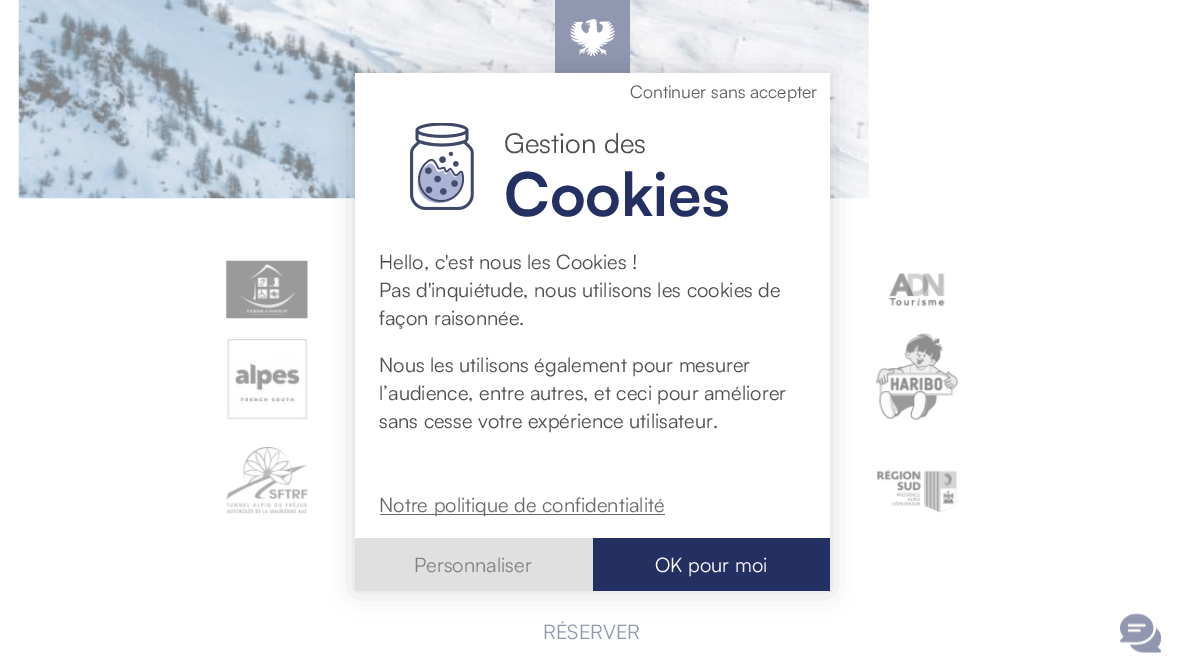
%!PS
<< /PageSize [1183 663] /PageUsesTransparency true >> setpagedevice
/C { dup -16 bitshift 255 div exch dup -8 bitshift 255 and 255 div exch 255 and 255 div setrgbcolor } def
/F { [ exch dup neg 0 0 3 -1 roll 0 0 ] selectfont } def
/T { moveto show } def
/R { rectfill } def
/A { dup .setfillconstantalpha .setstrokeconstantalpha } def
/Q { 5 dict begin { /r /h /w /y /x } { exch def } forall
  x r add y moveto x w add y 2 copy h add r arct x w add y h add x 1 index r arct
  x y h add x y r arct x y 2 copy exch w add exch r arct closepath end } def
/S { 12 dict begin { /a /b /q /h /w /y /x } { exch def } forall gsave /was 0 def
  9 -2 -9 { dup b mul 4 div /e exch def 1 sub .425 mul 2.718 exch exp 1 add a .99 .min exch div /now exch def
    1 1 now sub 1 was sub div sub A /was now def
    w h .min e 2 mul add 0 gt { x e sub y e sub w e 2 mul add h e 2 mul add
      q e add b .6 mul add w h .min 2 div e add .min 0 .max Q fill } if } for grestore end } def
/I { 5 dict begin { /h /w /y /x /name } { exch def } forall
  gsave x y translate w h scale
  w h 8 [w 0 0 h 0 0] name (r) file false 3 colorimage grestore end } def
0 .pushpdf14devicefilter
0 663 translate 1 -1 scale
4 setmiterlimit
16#FFFFFF C
0 0 1183 663 R
(2.rgb) 18 0 851 199 I
16#9297B1 C
555 0 75 73 R
(9.rgb) 570 19 45 37 I
16#000000 C
355 73 475 518 0 12.5 .15 S
16#FFFFFF C
355 73 475 465 R
/Satoshi-Regular 17.5 F
16#606060 C
(Continuer sans accepter) 630 98 T
(1.rgb) 410 123 64 87 I
/Satoshi-Regular 27.5 F
16#4F4F4F C
(Gestion des) 504 153 T
/Satoshi-Bold 60 F
16#242F62 C
(Cookies) 504 216 T
/Satoshi-Regular 20 F
16#4F4F4F C
(Hello, c'est nous les Cookies !) 379 269 T
(Pas d'inquiétude, nous utilisons les cookies de) 379 297 T
(façon raisonnée.) 379 325 T
(Nous les utilisons également pour mesurer) 379 372 T
(l’audience, entre autres, et ceci pour améliorer) 379 400 T
(sans cesse votre expérience utilisateur.) 379 428 T
16#6B6B6B C
380 514 285 1 R
(Notre politique de confidentialité) 379 512 T
16#E0E0E0 C
355 538 238 53 R
16#828282 C
(Personnaliser) 414 572 T
16#242F62 C
593 538 237 53 R
16#FFFFFF C
(OK pour moi) 655 572 T
(3.rgb) 226 260 82 59 I
(4.rgb) 889 273 56 34 I
(5.rgb) 226 336 82 84 I
(6.rgb) 876 333 82 87 I
(7.rgb) 226 447 82 67 I
(8.rgb) 877 469 80 44 I
16#9297B1 C
(RÉSERVER) 543 639 T
(10.rgb) 1120 613 41 40 I
.poppdf14devicefilter showpage
